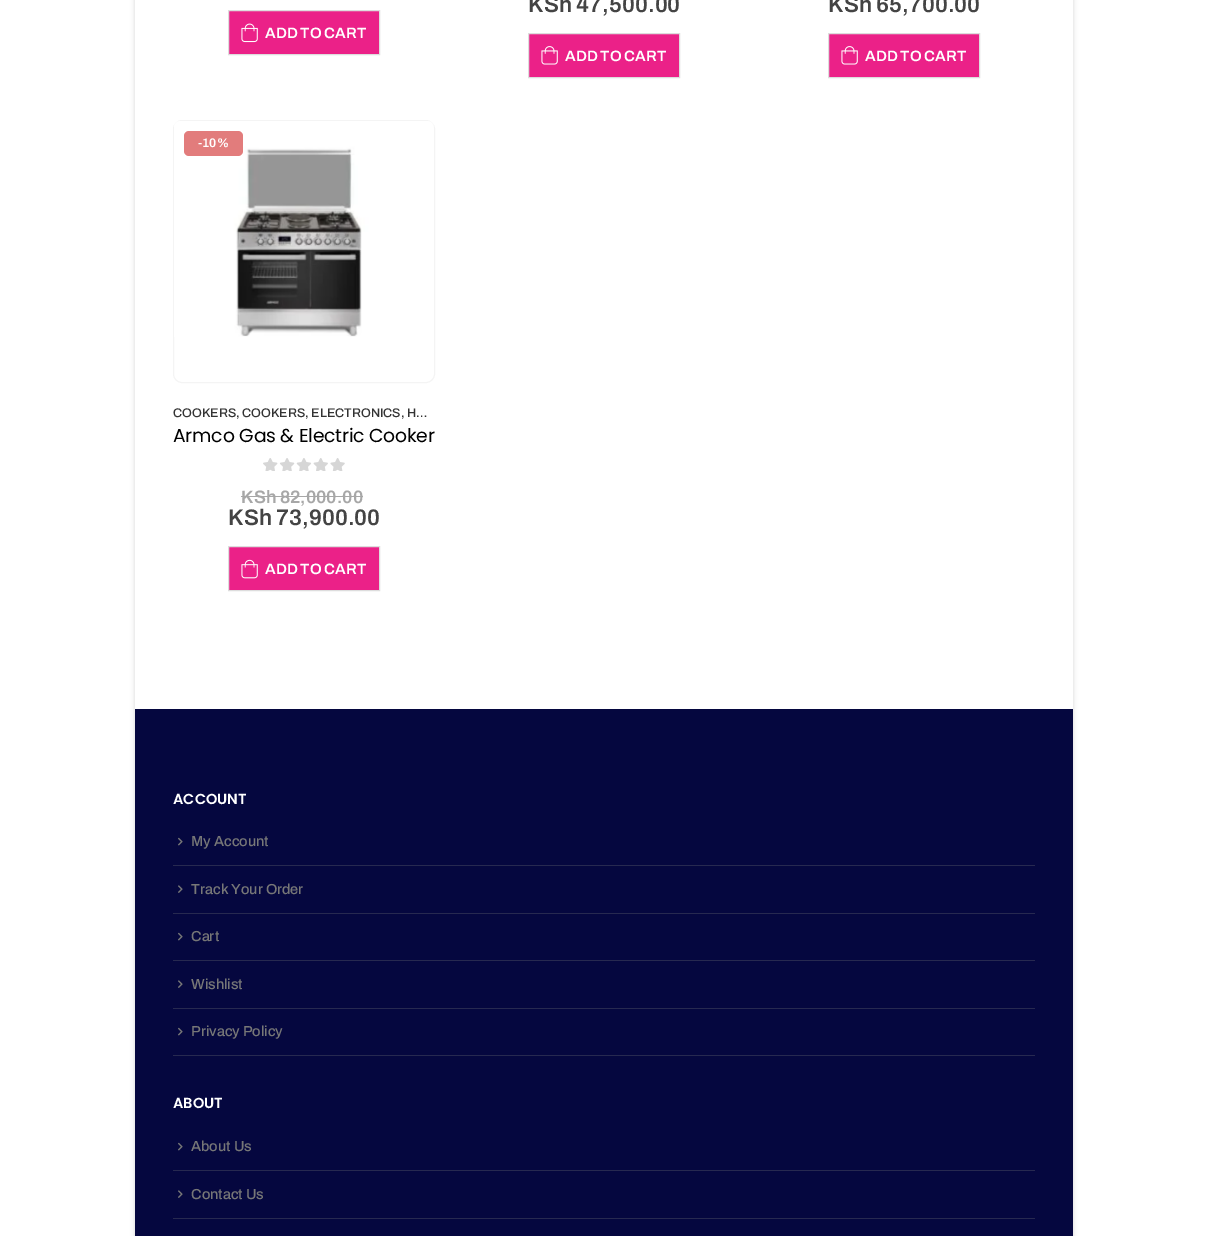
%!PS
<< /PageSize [1207 1236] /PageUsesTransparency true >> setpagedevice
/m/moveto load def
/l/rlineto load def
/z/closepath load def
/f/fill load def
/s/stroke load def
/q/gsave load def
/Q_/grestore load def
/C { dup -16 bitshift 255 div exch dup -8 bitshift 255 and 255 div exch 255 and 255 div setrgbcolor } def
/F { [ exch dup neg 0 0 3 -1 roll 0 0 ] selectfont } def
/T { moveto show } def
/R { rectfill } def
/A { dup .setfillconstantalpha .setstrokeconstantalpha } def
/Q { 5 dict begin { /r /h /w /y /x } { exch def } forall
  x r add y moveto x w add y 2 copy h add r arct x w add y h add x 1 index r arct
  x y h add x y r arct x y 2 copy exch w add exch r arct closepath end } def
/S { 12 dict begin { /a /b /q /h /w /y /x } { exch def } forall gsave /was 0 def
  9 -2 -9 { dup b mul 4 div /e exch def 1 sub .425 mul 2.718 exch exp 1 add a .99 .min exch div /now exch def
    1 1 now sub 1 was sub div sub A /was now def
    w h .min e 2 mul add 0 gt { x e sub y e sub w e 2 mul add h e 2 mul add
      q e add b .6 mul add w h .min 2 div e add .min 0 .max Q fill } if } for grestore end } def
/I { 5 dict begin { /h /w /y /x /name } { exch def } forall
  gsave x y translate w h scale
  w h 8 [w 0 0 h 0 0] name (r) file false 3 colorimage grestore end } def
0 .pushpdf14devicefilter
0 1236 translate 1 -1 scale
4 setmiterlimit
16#FFFFFF C
0 0 1207 1236 R
16#000000 C
135 -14 938 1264 6 2.5 .15 S
16#FFFFFF C
135 0 938 709 R
16#EB2188 C
228.5 10.5 m 151 0 l 0 44 l -151 0 l z q f Q_
16#DDDDDD C
s
(1.rgb) 241 23 17 20 I
/Archivo-SemiBold 15 F
16#FFFFFF C
(ADD TO CART) 265 38 T
/Archivo-SemiBold 22.5 F
16#444444 C
(KSh 47,500.00) 528 12 T
16#EB2188 C
528.5 33.5 m 151 0 l 0 44 l -151 0 l z q f Q_
16#DDDDDD C
s
(2.rgb) 541 46 17 19 I
/Archivo-SemiBold 15 F
16#FFFFFF C
(ADD TO CART) 565 61 T
/Archivo-SemiBold 22.5 F
16#444444 C
(KSh 65,700.00) 828 12 T
16#EB2188 C
828.5 33.5 m 151 0 l 0 44 l -151 0 l z q f Q_
16#DDDDDD C
s
(2.rgb) 841 46 17 19 I
/Archivo-SemiBold 15 F
16#FFFFFF C
(ADD TO CART) 865 61 T
16#F4F4F4 C
173.5 120.5 261 262 8.5 Q s
(3.rgb) 174 121 260 216 I
16#E27C7C C
184 131 59 25 5 Q f
/Archivo-SemiBold 12.5 F
16#FFFFFF C
(-10%) 198 147 T
/Archivo-Medium 12.5 F
16#333333 C
(COOKERS, COOKERS, ELECTRONICS, H…) 173 417 T
/Poppins-Regular 18.75 F
16#000000 C
173 442 m -.2 0 (Armco Gas & Electric Cooker) ashow
(4.rgb) 263 458 82 13 I
/Archivo-SemiBold 18 F
16#A7A7A7 C
(KSh 82,000.00) 241 503 T
241 496 122 1 R
/Archivo-SemiBold 22.5 F
16#444444 C
(KSh 73,900.00) 228 525 T
16#EB2188 C
228.5 546.5 m 151 0 l 0 44 l -151 0 l z q f Q_
16#DDDDDD C
s
(5.rgb) 241 559 17 20 I
/Archivo-SemiBold 15 F
16#FFFFFF C
(ADD TO CART) 265 574 T
16#05073F C
135 709 938 527 R
/Poppins-SemiBold 14.5 F
16#FFFFFF C
(ACCOUNT) 173 804 T
16#272950 C
173 1055 862 1 R
(6.rgb) 178 837 5 9 I
/Archivo-Medium 14.5 F
16#777777 C
(My Account) 191 846 T
16#272950 C
173 865 862 1 R
(7.rgb) 178 885 5 8 I
16#777777 C
(Track Your Order) 191 894 T
16#272950 C
173 913 862 1 R
(6.rgb) 178 932 5 9 I
16#777777 C
(Cart) 191 941 T
16#272950 C
173 960 862 1 R
(7.rgb) 178 980 5 8 I
16#777777 C
(Wishlist) 191 989 T
16#272950 C
173 1008 862 1 R
(6.rgb) 178 1027 5 9 I
16#777777 C
(Privacy Policy) 191 1036 T
/Poppins-SemiBold 14.5 F
16#FFFFFF C
(ABOUT) 173 1108 T
(6.rgb) 178 1142 5 9 I
/Archivo-Medium 14.5 F
16#777777 C
(About Us) 191 1151 T
16#272950 C
173 1170 862 1 R
(7.rgb) 178 1190 5 8 I
16#777777 C
(Contact Us) 191 1199 T
16#272950 C
173 1218 862 1 R
.poppdf14devicefilter showpage
